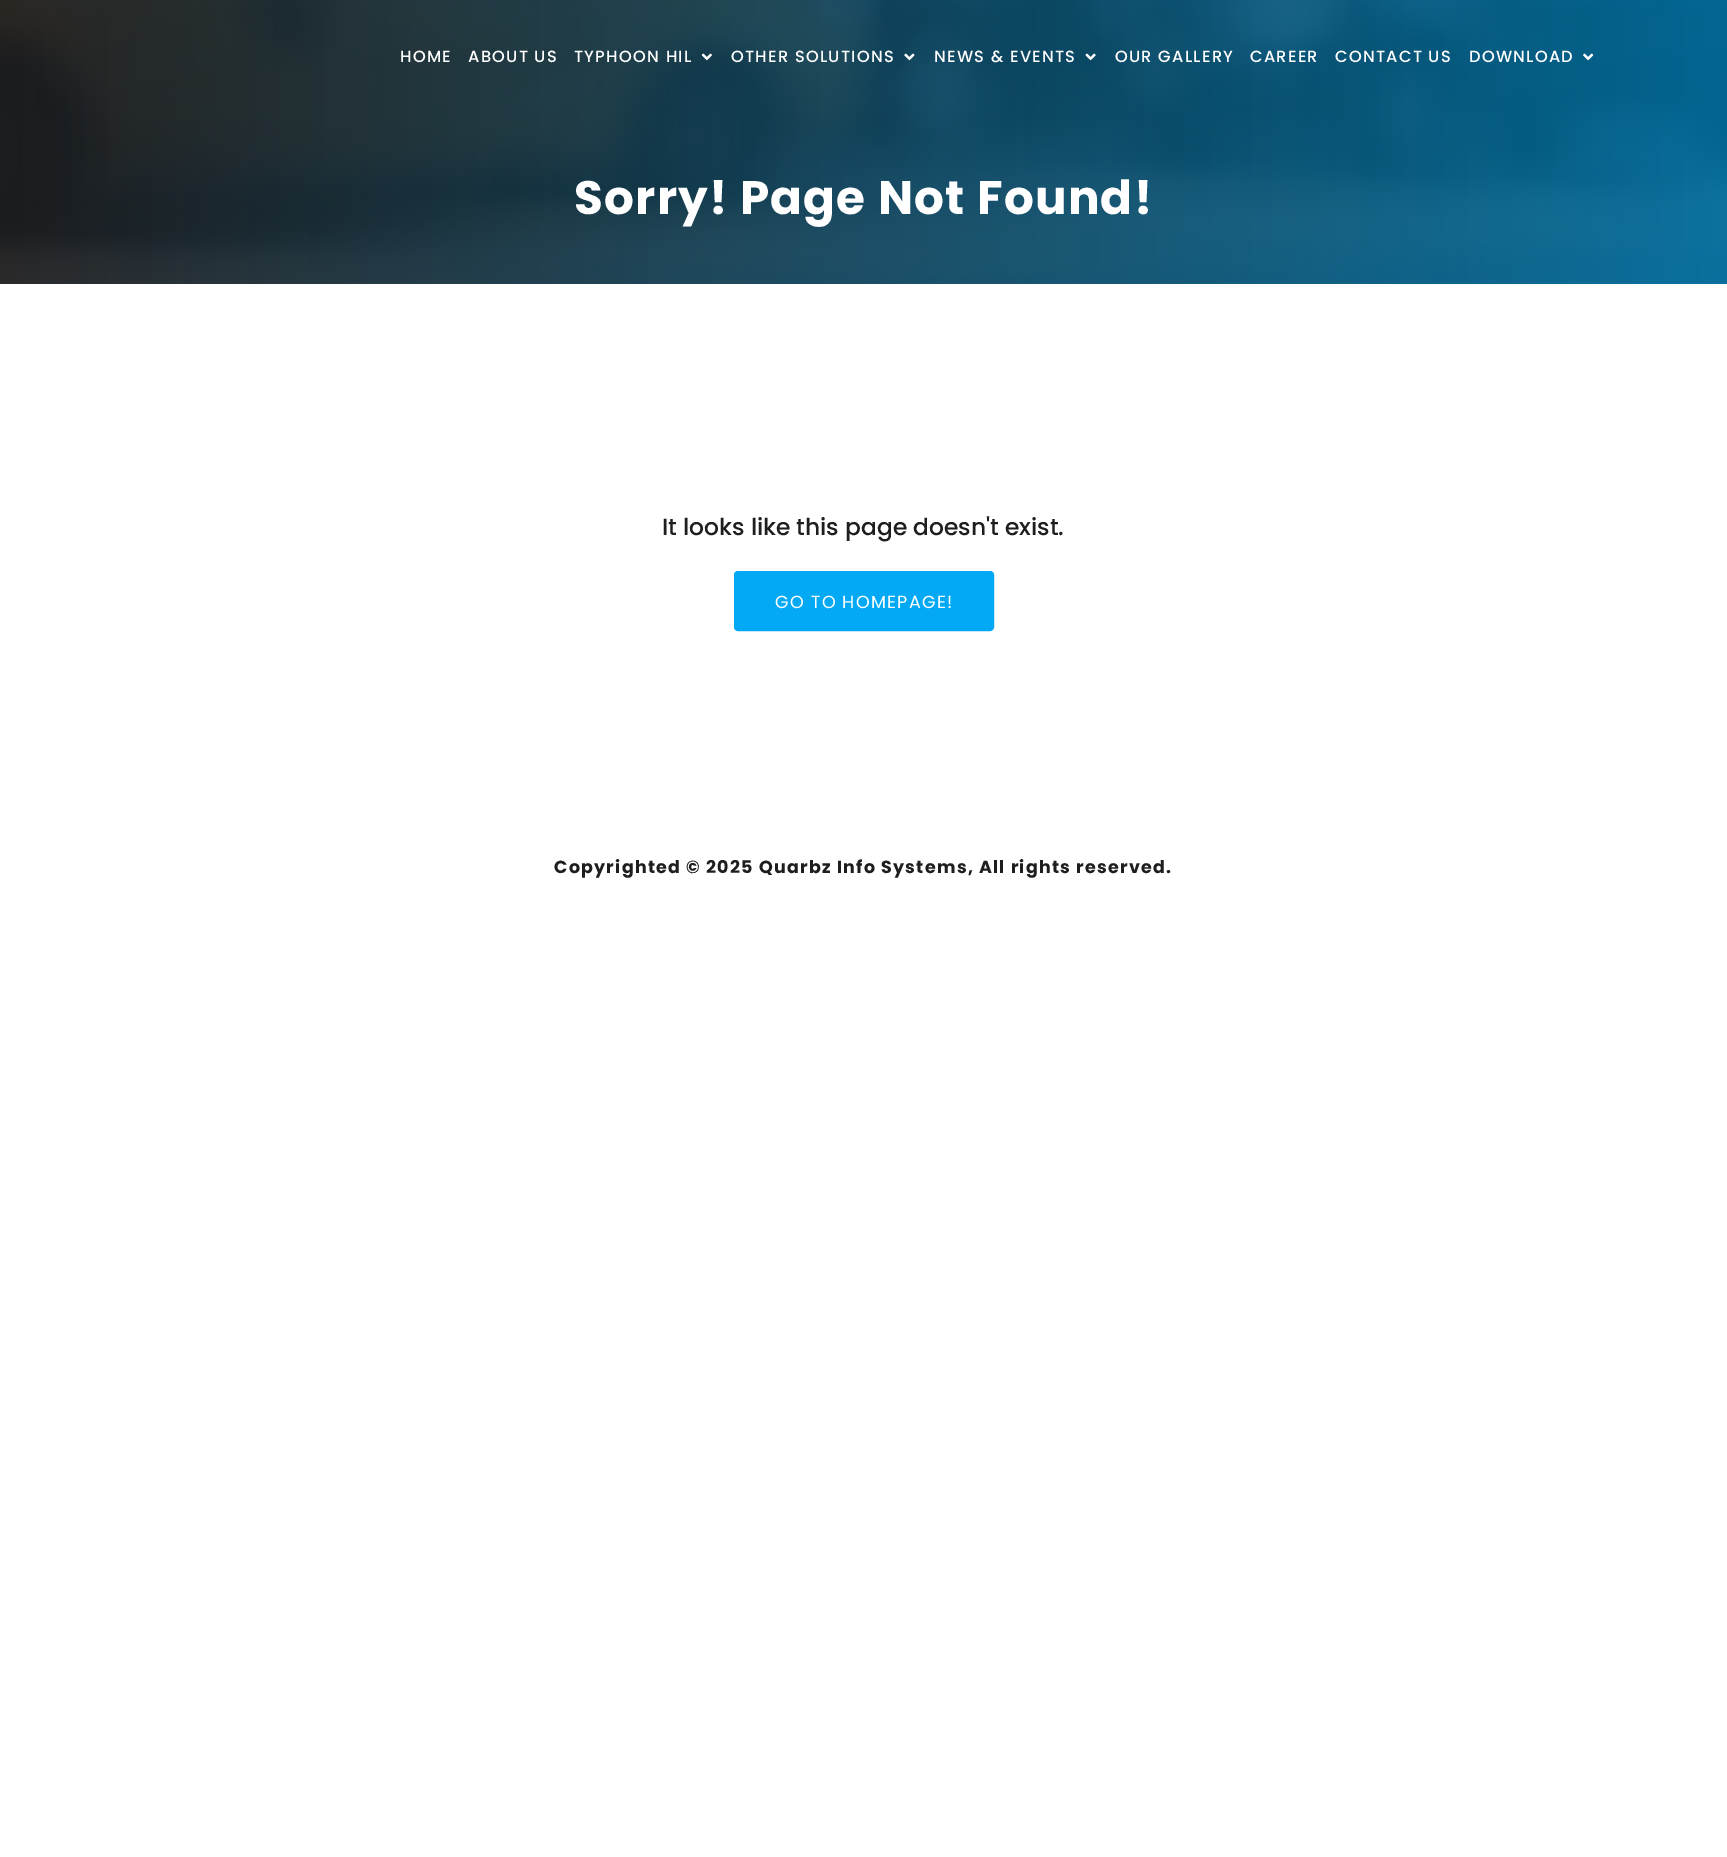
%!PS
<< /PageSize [1727 1857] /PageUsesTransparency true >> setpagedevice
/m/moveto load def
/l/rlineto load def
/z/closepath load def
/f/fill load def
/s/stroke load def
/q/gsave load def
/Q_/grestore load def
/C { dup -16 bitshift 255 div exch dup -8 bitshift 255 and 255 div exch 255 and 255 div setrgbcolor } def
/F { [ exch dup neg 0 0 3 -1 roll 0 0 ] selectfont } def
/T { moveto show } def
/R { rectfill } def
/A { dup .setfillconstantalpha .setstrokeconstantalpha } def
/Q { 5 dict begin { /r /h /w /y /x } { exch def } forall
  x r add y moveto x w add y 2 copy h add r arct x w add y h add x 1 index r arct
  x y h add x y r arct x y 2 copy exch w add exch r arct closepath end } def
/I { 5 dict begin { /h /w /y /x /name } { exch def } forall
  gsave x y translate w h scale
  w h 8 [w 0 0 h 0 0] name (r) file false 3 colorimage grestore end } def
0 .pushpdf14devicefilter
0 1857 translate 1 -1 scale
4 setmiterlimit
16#FFFFFF C
0 0 1727 1857 R
(5.rgb) 0 0 1727 284 I
0.9 A
q 0 0 m 1727 0 l 0 284 l -1727 0 l z clip newpath
<< /ShadingType 2 /ColorSpace /DeviceRGB /Coords [0 142 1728 142] /Extend [true true] /Function << /FunctionType 2 /Domain [0 1] /C0 [.118 .118 .125] /C1 [.004 .431 .62] /N 1 >> >> shfill Q_
/Poppins-Medium 16.25 F
1 A
400 62 m 1.25 0 (HOME) ashow
468 62 m 1.25 0 (ABOUT US) ashow
574 62 m 1.25 0 (TYPHOON HIL) ashow
(1.rgb) 701 53 11 8 I
731 62 m 1.25 0 (OTHER SOLUTIONS) ashow
(2.rgb) 904 53 11 8 I
934 62 m 1.25 0 (NEWS & EVENTS) ashow
(3.rgb) 1085 53 11 8 I
1115 62 m 1.25 0 (OUR GALLERY) ashow
1250 62 m 1.25 0 (CAREER) ashow
1335 62 m 1.25 0 (CONTACT US) ashow
1469 62 m 1.25 0 (DOWNLOAD) ashow
(4.rgb) 1583 53 11 8 I
/Poppins-Bold 46.9 F
574 214 m 1.25 0 (Sorry! Page Not Found!) ashow
/Poppins-Medium 23.4 F
16#1E1E20 C
(It looks like this page doesn't exist.) 662 535 T
16#03A9F4 C
734.5 571.5 259 59 3.5 Q q f Q_
s
/Poppins-Regular 17.5 F
16#FFFFFF C
775 608 m 1.25 0 (GO TO HOMEPAGE!) ashow
/Poppins-Bold 17.5 F
16#1E1E20 C
554 873 m 1.25 0 (Copyrighted © 2025 Quarbz Info Systems, All rights reserved.) ashow
.poppdf14devicefilter showpage
